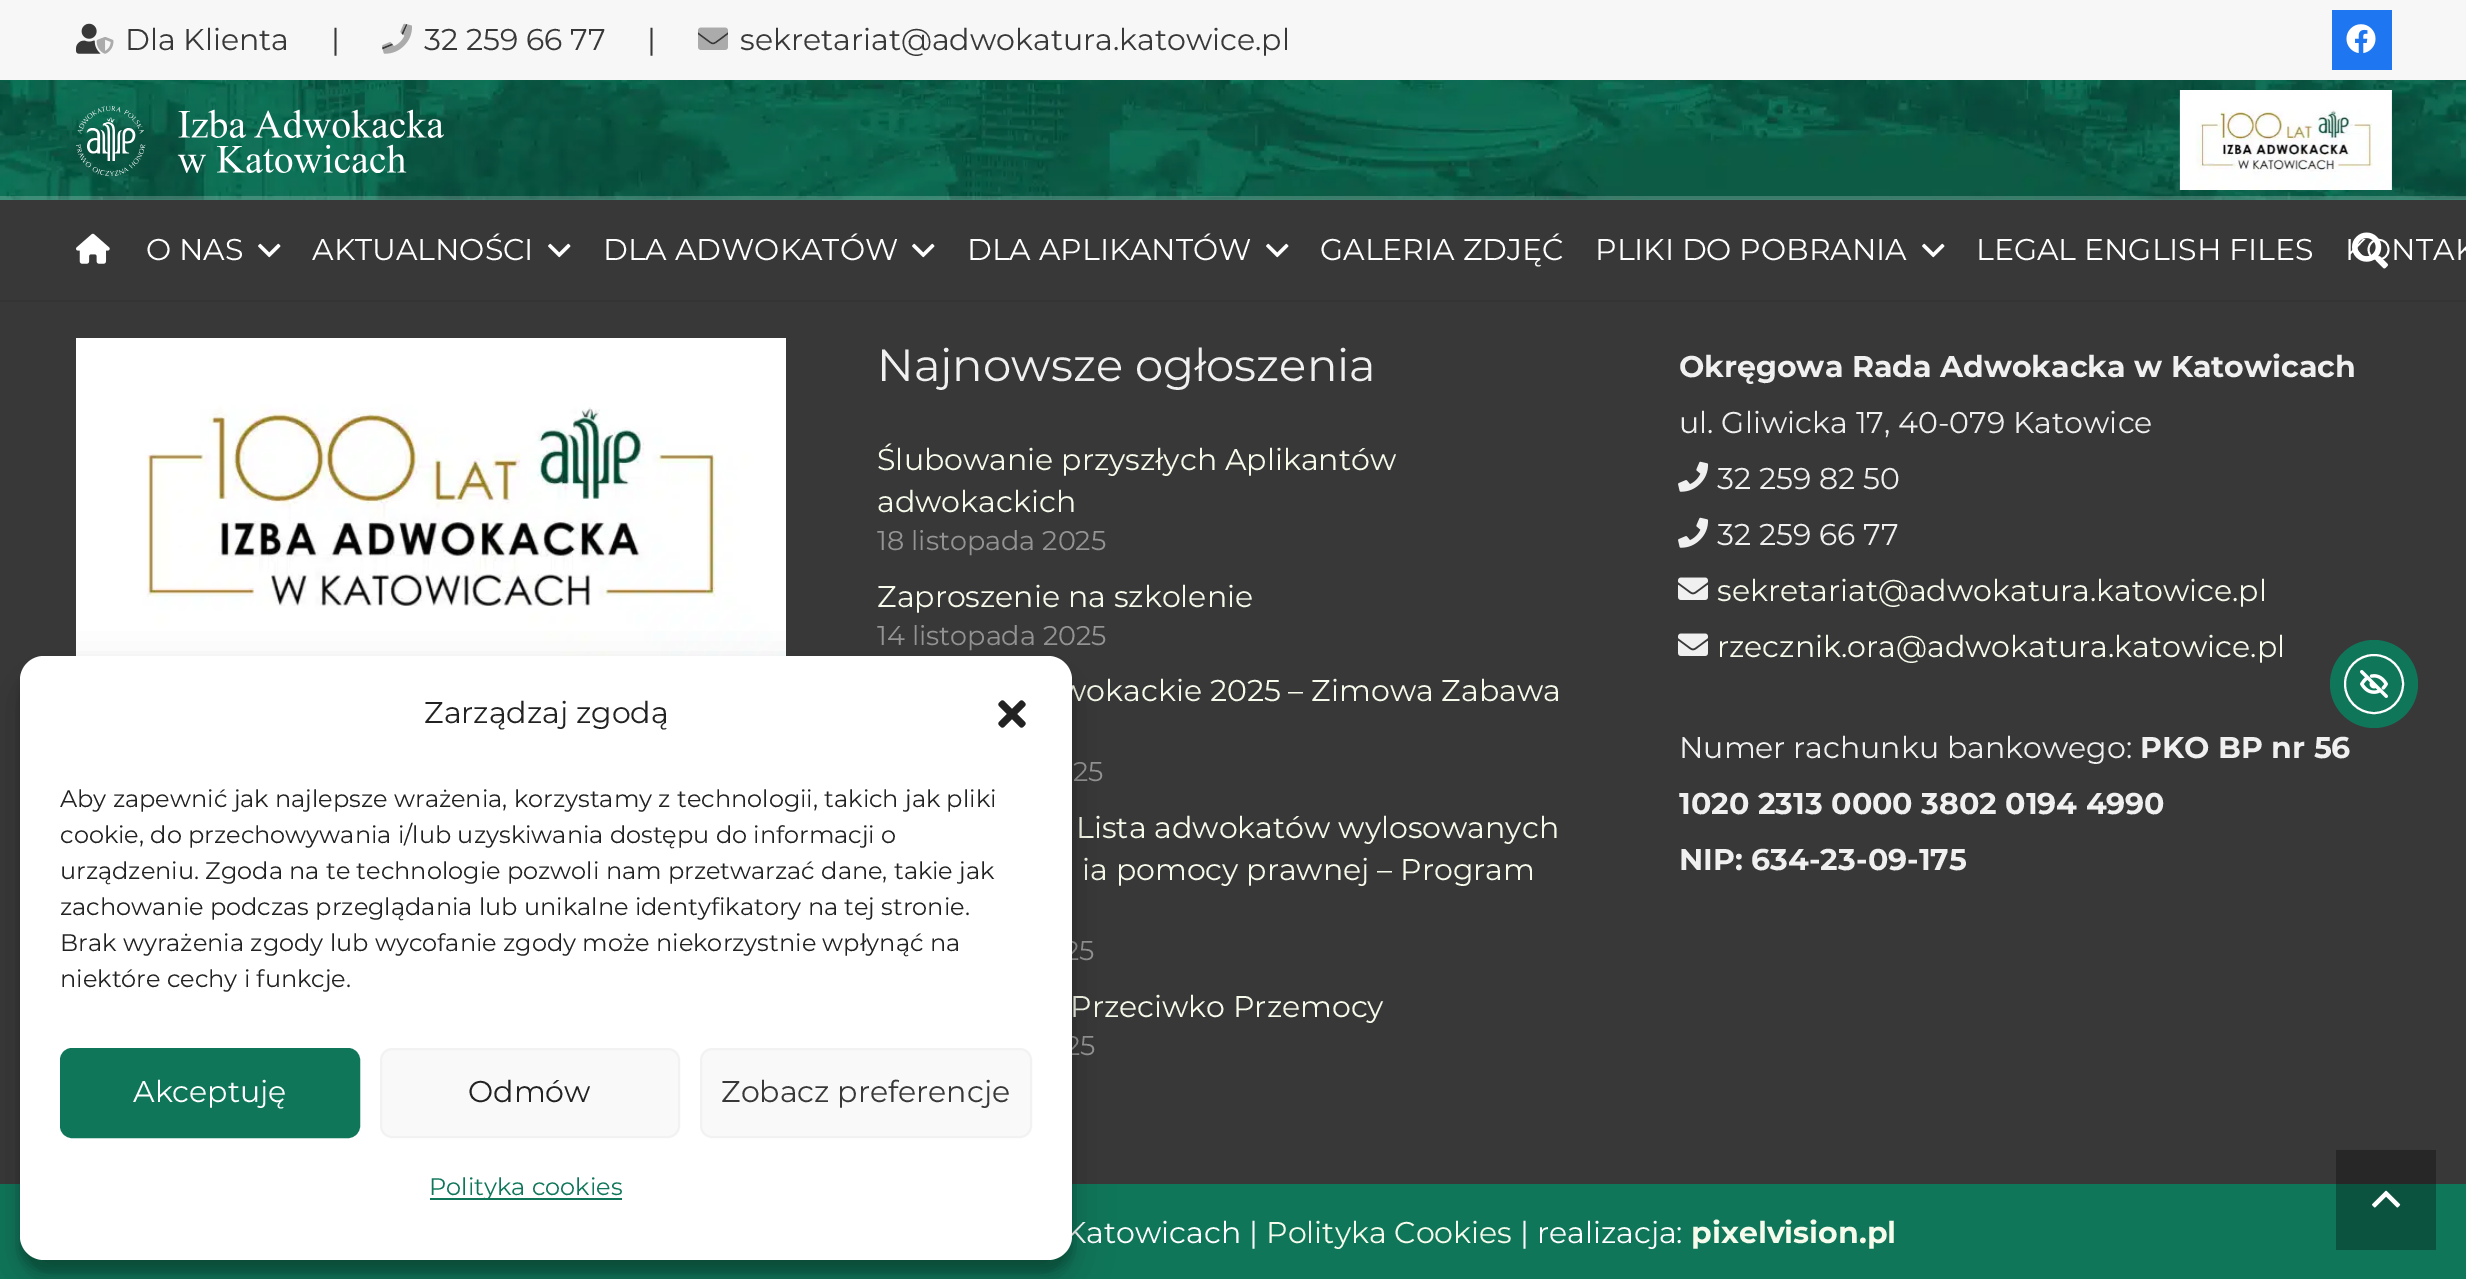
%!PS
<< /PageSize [2466 1279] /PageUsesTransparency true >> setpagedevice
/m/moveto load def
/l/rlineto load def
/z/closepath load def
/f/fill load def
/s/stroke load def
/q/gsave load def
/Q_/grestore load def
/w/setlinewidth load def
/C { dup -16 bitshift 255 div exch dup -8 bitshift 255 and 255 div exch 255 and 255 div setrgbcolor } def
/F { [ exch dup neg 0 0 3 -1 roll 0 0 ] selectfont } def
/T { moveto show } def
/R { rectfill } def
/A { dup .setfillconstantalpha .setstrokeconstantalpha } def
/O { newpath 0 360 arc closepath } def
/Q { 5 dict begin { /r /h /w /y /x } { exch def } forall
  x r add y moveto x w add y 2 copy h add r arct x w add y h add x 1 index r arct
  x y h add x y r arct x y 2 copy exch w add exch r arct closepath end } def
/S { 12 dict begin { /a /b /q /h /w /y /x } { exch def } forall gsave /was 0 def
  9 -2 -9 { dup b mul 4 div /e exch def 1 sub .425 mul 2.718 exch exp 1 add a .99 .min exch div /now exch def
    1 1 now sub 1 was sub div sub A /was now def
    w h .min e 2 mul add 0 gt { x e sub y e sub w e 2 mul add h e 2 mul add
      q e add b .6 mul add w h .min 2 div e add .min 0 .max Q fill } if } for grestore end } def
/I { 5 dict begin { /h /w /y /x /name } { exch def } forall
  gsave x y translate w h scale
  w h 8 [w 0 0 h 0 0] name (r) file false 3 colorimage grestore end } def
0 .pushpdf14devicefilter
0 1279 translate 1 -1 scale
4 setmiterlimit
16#383838 C
0 0 2466 1279 R
16#F7F7F7 C
0 0 2466 80 R
(1.rgb) 76 23 25 31 I
(2.rgb) 96 37 18 17 I
/Montserrat-Thin 30 F
16#383838 C
(Dla Klienta) 125 50 T
(|) 331 50 T
406 24 m 1.5 .5 l -4.5 10.5 l -1.5 -1.5 l z 382 47.5 m 10 -4 l 1 1.5 l -10.5 4.5 l z f
(3.rgb) 382 23 30 31 I
(32 259 66 77) 424 50 T
(|) 647 50 T
(5.rgb) 698 31 30 14 I
(4.rgb) 698 27 30 23 I
(sekretariat@adwokatura.katowice.pl) 740 50 T
16#1E77F0 C
2332 10 60 60 R
(6.rgb) 2346 24 30 29 I
16#0F765A C
0 80 2466 120 R
(7.rgb) 0 80 2466 120 I
0.2 A
16#FFFFFF C
0 196 2466 4 R
1 A
(8.rgb) 76 106 368 70 I
(9.rgb) 2179 90 213 100 I
16#343434 C
0 300 2466 2 R
(10.rgb) 2352 232 36 37 I
(11.rgb) 76 233 34 31 I
16#FFFFFF C
(O NAS) 146 260 T
(12.rgb) 258 243 23 15 I
(AKTUALNOŚCI) 312 260 T
(12.rgb) 548 243 23 15 I
(DLA ADWOKATÓW) 603 260 T
(12.rgb) 912 243 23 15 I
(DLA APLIKANTÓW) 967 260 T
(12.rgb) 1266 243 23 15 I
(GALERIA ZDJĘĆ) 1320 260 T
(PLIKI DO POBRANIA) 1595 260 T
(12.rgb) 1922 243 23 15 I
(LEGAL ENGLISH FILES) 1976 260 T
(KONTAK) 2345 260 T
16#272727 C
2336 1150 100 34 R
(13.rgb) 76 338 710 318 I
/Montserrat-Thin 45 F
16#F0F0F0 C
(Najnowsze ogłoszenia) 877 381 T
/Montserrat-Thin 30 F
16#F6FBEB C
(Ślubowanie przyszłych Aplikantów) 877 470 T
(adwokackich) 877 512 T
/Montserrat-Thin 27 F
16#949494 C
(18 listopada 2025) 877 550 T
/Montserrat-Thin 30 F
16#F6FBEB C
(Zaproszenie na szkolenie) 877 607 T
/Montserrat-Thin 27 F
16#949494 C
(14 listopada 2025) 877 645 T
/Montserrat-Thin 30 F
16#F6FBEB C
(wokackie 2025 – Zimowa Zabawa) 1060 701 T
/Montserrat-Thin 27 F
16#949494 C
(25) 1073 781 T
/Montserrat-Thin 30 F
16#F6FBEB C
(Lista adwokatów wylosowanych) 1076 838 T
(ia pomocy prawnej – Program) 1082 880 T
/Montserrat-Thin 27 F
16#949494 C
(25) 1064 960 T
/Montserrat-Thin 30 F
16#F6FBEB C
(Przeciwko Przemocy) 1070 1017 T
/Montserrat-Thin 27 F
16#949494 C
(25) 1065 1055 T
/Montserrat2-Thin 30 F
16#F0F0F0 C
(Okręgowa Rada Adwokacka w Katowicach) 1679 377 T
/Montserrat-Thin 30 F
(ul. Gliwicka 17, 40-079 Katowice) 1679 433 T
(14.rgb) 1678 461 31 31 I
(32 259 82 50) 1717 489 T
(14.rgb) 1678 517 31 31 I
(32 259 66 77) 1717 545 T
(15.rgb) 1678 577 30 23 I
16#F6FBEB C
(sekretariat@adwokatura.katowice.pl) 1717 601 T
(15.rgb) 1678 633 30 23 I
(rzecznik.ora@adwokatura.katowice.pl) 1717 657 T
16#F0F0F0 C
(Numer rachunku bankowego:) 1679 758 T
/Montserrat2-Thin 30 F
(PKO BP nr 56) 2140 758 T
(1020 2313 0000 3802 0194 4990) 1679 814 T
(NIP: 634-23-09-175) 1679 870 T
16#0F765A C
0 1184 2466 95 R
16#0B533F C
2336 1184 100 66 R
/Montserrat-Thin 30 F
16#FFFFFF C
(Katowicach |) 1065 1243 T
16#F6FBEB C
(Polityka Cookies) 1266 1243 T
16#FFFFFF C
(| realizacja:) 1520 1243 T
/Montserrat2-Thin 30 F
16#F6FBEB C
(pixelvision.pl) 1691 1243 T
16#0F765A C
2374 684 44 O f
16#FFFFFF C
2 w
2374 684 29 O s
(16.rgb) 2360 670 28 28 I
16#000000 C
20 668 1052 604 24 6 .23 S
20 676 1052 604 24 20 .19 S
16#FFFFFF C
20 656 1052 604 24 Q f
/Montserrat-Thin 30 F
16#222222 C
(Zarządzaj zgodą) 424 723 T
(17.rgb) 998 700 28 28 I
/Montserrat-Thin 24 F
(Aby zapewnić jak najlepsze wrażenia, korzystamy z technologii, takich jak pliki) 60 807 T
(cookie, do przechowywania i/lub uzyskiwania dostępu do informacji o) 60 843 T
(urządzeniu. Zgoda na te technologie pozwoli nam przetwarzać dane, takie jak) 60 879 T
(zachowanie podczas przeglądania lub unikalne identyfikatory na tej stronie.) 60 915 T
(Brak wyrażenia zgody lub wycofanie zgody może niekorzystnie wpłynąć na) 60 951 T
(niektóre cechy i funkcje.) 60 987 T
16#0F765A C
61 1049 298 88 11 Q q f Q_
s
/Montserrat-Thin 30 F
16#FFFFFF C
(Akceptuję) 133 1102 T
16#F9F9F9 C
381 1049 298 88 11 Q q f Q_
16#F2F2F2 C
s
16#222222 C
(Odmów) 468 1102 T
16#F9F9F9 C
701 1049 330 88 11 Q q f Q_
16#F2F2F2 C
s
16#383838 C
(Zobacz preferencje) 721 1102 T
16#0F765A C
430 1198 192 2 R
/Montserrat-Thin 24 F
(Polityka cookies) 429 1195 T
(18.rgb) 2372 1190 29 18 I
.poppdf14devicefilter showpage
